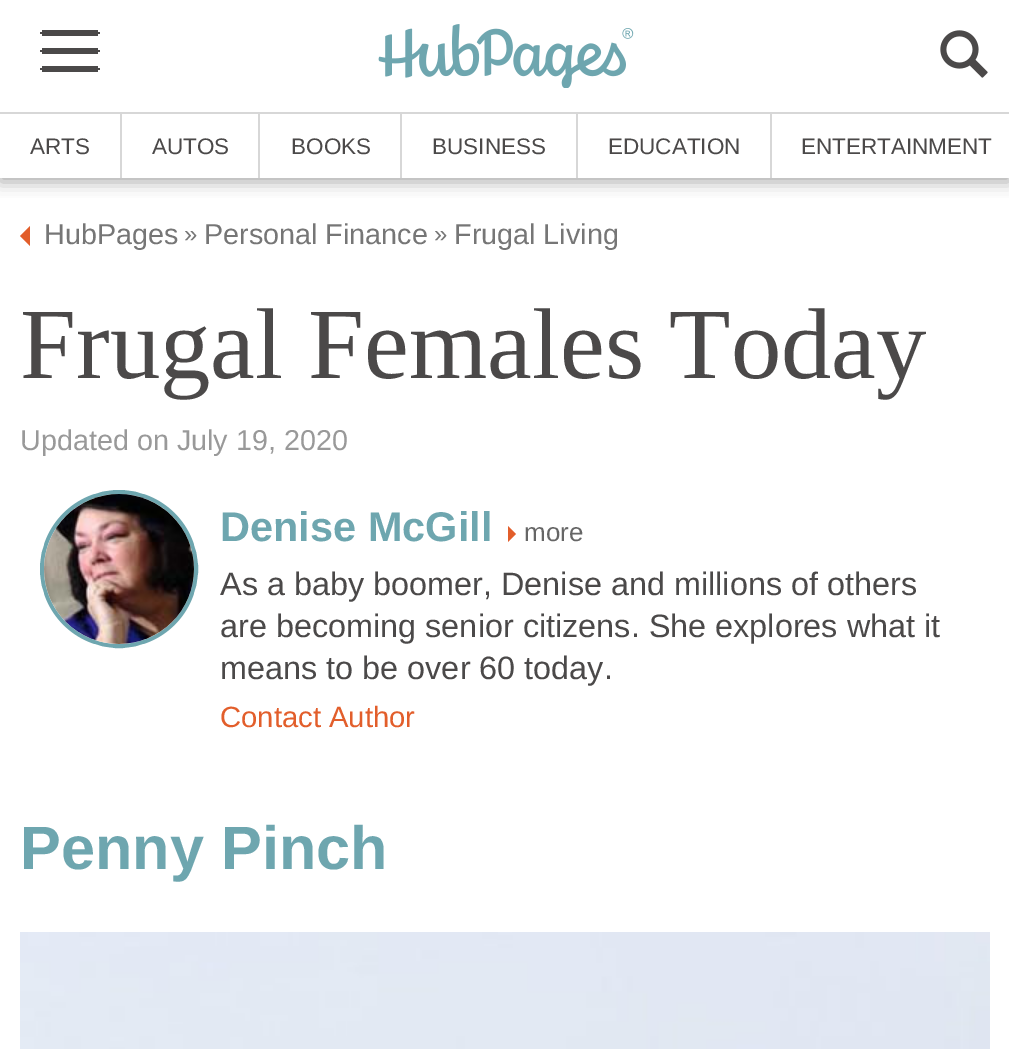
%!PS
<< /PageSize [1009 1049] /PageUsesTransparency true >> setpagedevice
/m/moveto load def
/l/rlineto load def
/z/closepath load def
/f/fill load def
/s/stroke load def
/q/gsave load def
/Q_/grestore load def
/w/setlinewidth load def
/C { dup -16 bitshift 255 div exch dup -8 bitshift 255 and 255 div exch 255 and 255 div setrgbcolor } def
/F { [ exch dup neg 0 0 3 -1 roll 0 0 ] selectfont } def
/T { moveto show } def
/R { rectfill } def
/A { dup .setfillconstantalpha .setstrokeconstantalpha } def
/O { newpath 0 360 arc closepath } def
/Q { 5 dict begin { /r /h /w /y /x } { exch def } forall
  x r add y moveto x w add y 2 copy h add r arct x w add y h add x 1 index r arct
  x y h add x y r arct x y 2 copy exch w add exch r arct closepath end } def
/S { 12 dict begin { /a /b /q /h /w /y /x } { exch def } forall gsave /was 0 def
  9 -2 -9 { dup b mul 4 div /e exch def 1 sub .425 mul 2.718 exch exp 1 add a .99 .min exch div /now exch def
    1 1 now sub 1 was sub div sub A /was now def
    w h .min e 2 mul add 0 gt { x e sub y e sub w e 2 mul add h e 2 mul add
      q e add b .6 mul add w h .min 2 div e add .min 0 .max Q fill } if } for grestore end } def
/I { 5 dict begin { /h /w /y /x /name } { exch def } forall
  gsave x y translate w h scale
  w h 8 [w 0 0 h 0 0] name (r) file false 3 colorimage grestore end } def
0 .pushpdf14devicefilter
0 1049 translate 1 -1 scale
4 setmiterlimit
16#FFFFFF C
0 0 1009 1049 R
q
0 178 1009 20 rectclip
16#AAAAAA C
0 116 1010 66 0 8 1 S
Q_
0 101 1009 11 R
16#D7D7D7 C
0 112 1009 2 R
16#4B4949 C
94 32 6 2 R
42 30 56 6 R
40 32 6 2 R
94 50 6 2 R
42 48 56 6 R
40 50 6 2 R
94 68 6 2 R
42 66 56 6 R
40 68 6 2 R
(1.rgb) 378 24 256 64 I
(2.rgb) 940 30 48 48 I
16#D7D7D7 C
120 114 2 64 R
/LiberationSans-Regular 22.5 F
16#4B4949 C
(ARTS) 30 154 T
16#D7D7D7 C
258 114 2 64 R
16#4B4949 C
(AUTOS) 152 154 T
16#D7D7D7 C
400 114 2 64 R
16#4B4949 C
(BOOKS) 291 154 T
16#D7D7D7 C
576 114 2 64 R
16#4B4949 C
(BUSINESS) 432 154 T
16#D7D7D7 C
770 114 2 64 R
16#4B4949 C
(EDUCATION) 608 154 T
(ENTERTAINMENT) 801 154 T
16#E25E2B C
30 226 m 0 20 l -10 -10 l z f
/LiberationSans-Regular 28.75 F
16#767676 C
(HubPages) 44 244 T
/LiberationSans-Regular 24 F
(») 184 242 T
/LiberationSans-Regular 28.75 F
(Personal Finance) 204 244 T
/LiberationSans-Regular 24 F
(») 434 242 T
/LiberationSans-Regular 28.75 F
(Frugal Living) 454 244 T
/LiberationSerif-Regular 100.75 F
16#4B4949 C
(Frugal Females Today) 20 378 T
/LiberationSans-Regular 28.75 F
16#999999 C
(Updated on July 19, 2020) 20 450 T
16#6EA6AF C
4 w
119 569 77 O s
(3.rgb) 44 494 150 150 I
/LiberationSans-Bold 41.5 F
(Denise McGill) 220 541 T
16#E25E2B C
508 542 m 0 -16 l 8 8 l z f
/LiberationSans-Regular 26 F
16#666666 C
(more) 524 541 T
/LiberationSans-Regular 32.4 F
16#4B4949 C
(As a baby boomer, Denise and millions of others) 220 595 T
(are becoming senior citizens. She explores what it) 220 637 T
(means to be over 60 today.) 220 679 T
/LiberationSans-Regular 29.25 F
16#E25E2B C
(Contact Author) 220 727 T
/LiberationSans-Bold 61.25 F
16#6EA6AF C
(Penny Pinch) 20 869 T
(4.rgb) 20 932 970 117 I
.poppdf14devicefilter showpage
